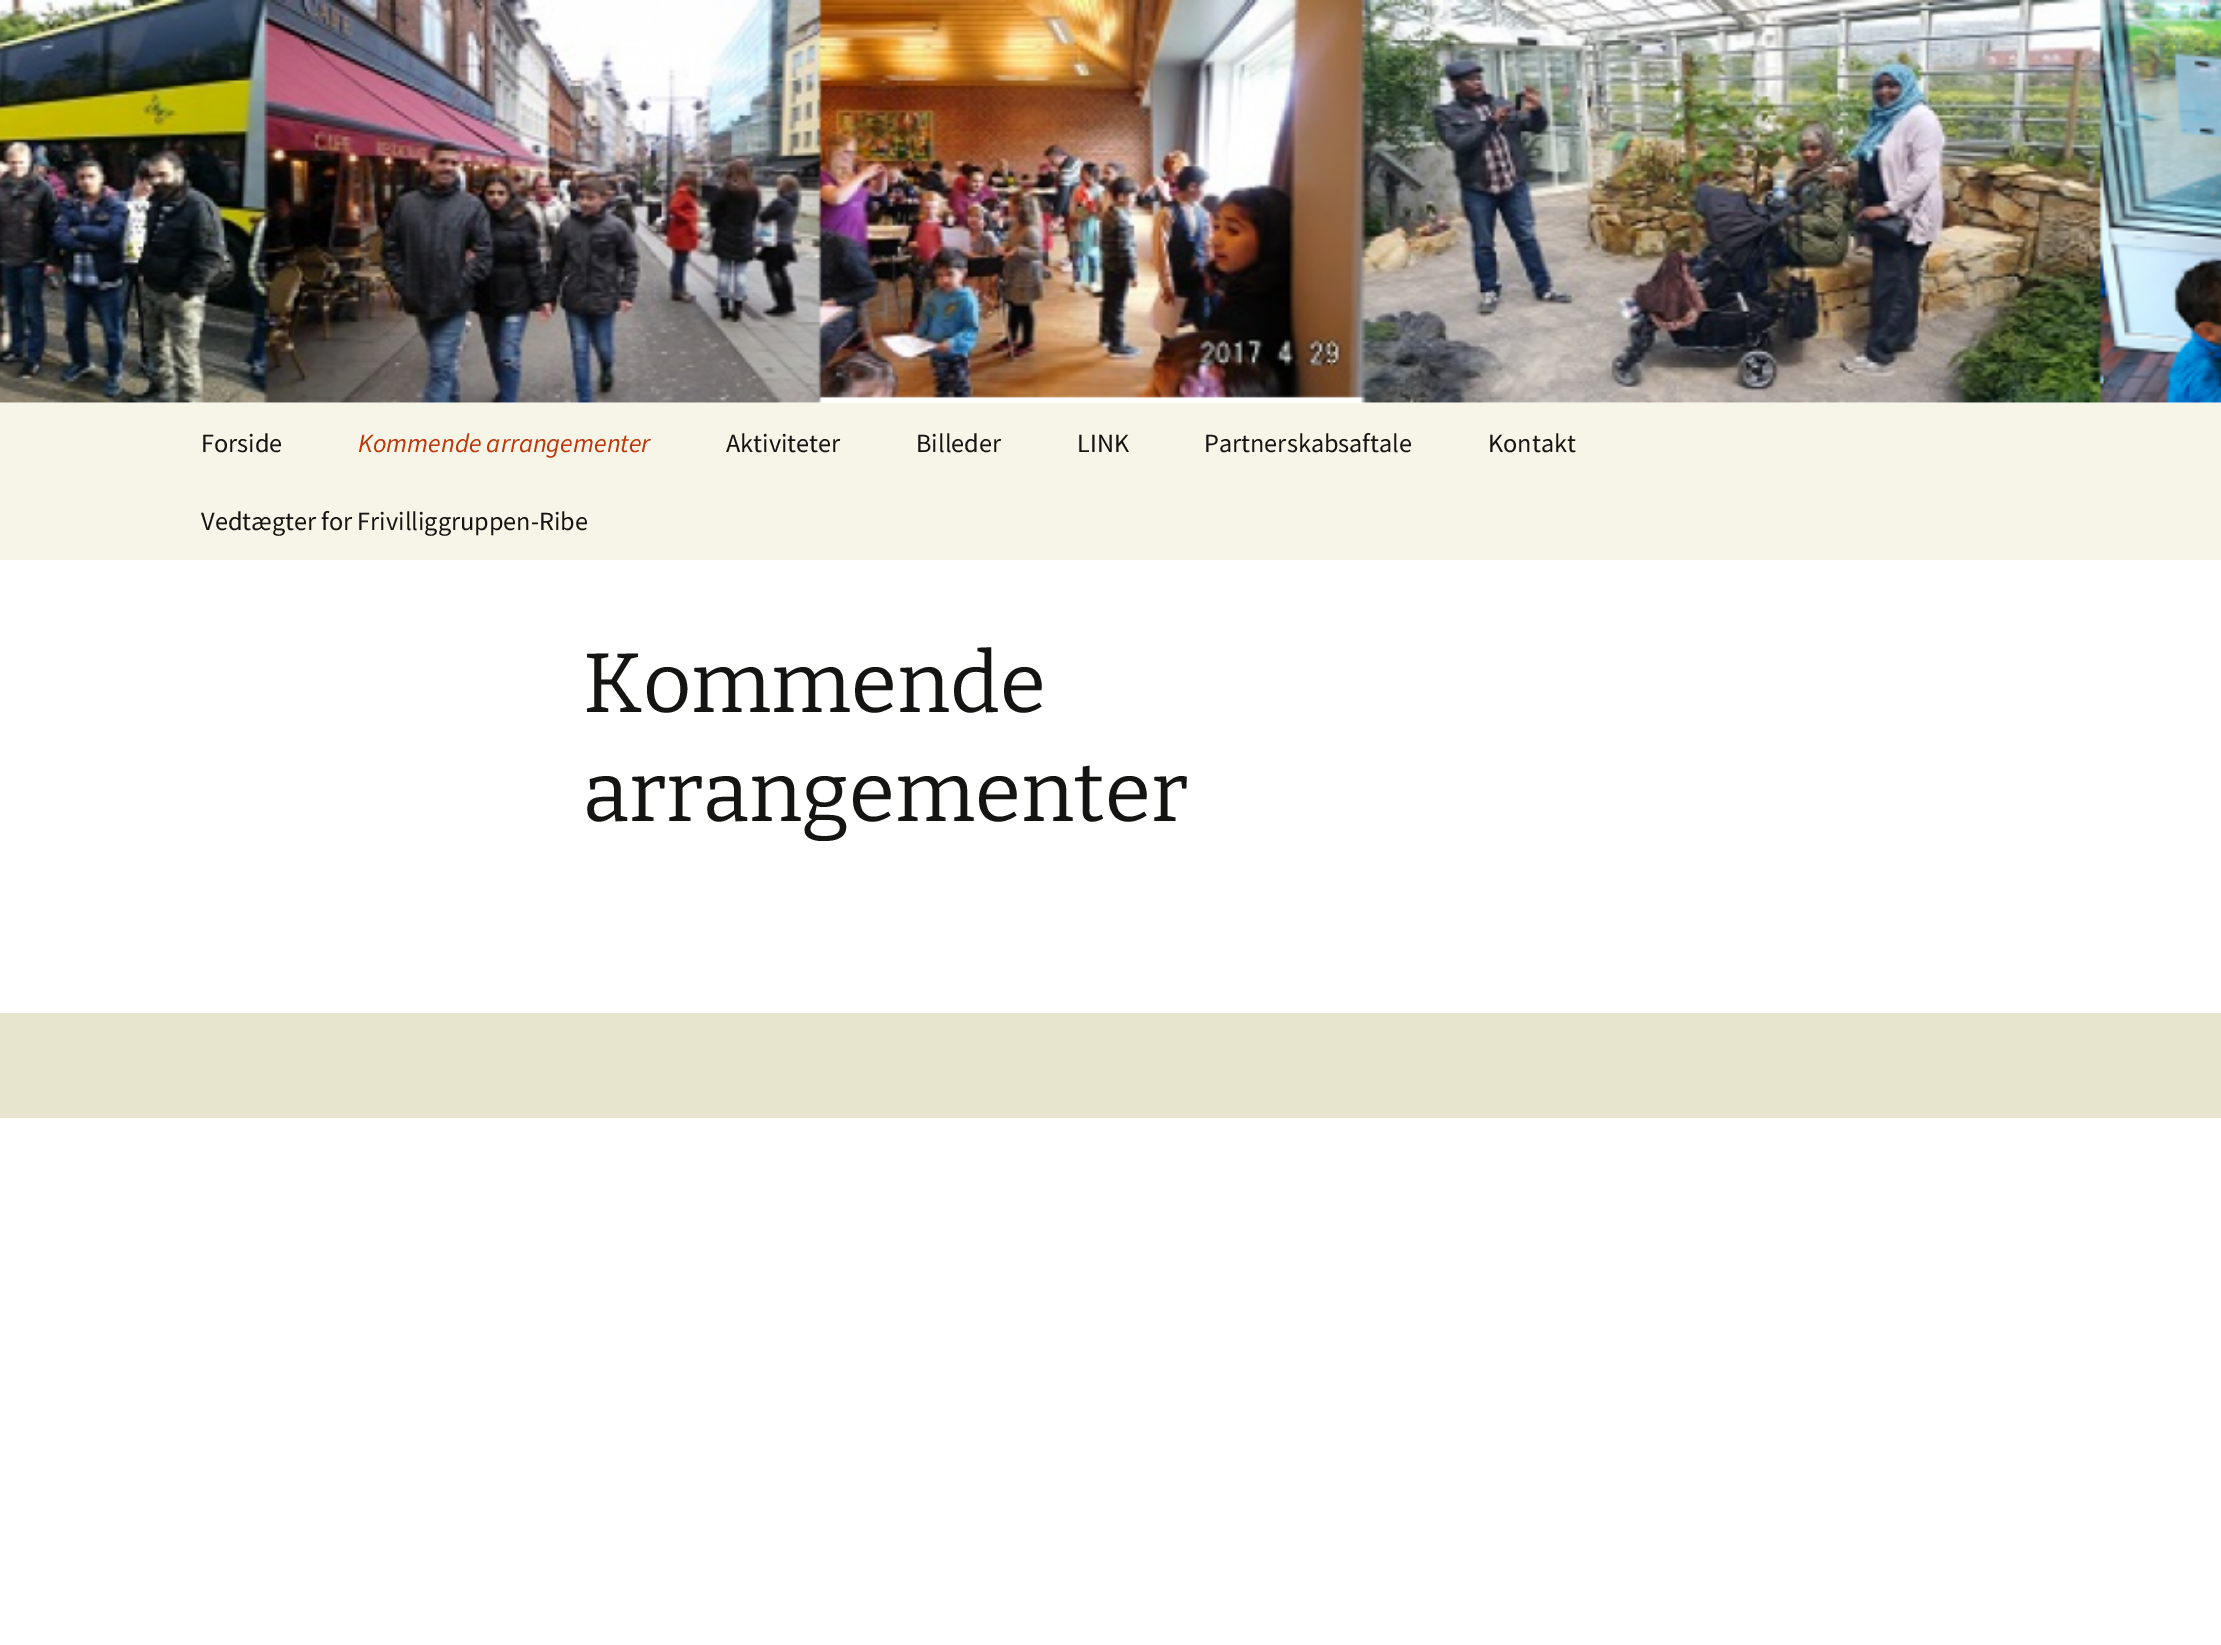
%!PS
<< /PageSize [2221 1645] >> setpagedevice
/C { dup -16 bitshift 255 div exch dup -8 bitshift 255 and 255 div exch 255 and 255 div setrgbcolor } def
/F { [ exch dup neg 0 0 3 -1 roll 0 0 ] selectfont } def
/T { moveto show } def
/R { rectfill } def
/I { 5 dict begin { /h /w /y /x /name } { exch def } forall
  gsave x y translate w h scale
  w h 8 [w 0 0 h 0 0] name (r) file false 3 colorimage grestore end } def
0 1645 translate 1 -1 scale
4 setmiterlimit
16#FFFFFF C
0 0 2221 1645 R
(1.rgb) 0 0 2221 403 I
16#F7F5E7 C
0 403 2221 157 R
/SourceSansPro-Regular 26.25 F
16#141412 C
(Forside) 201 452 T
/SourceSansPro-Italic 26.25 F
16#BC360A C
(Kommende arrangementer) 358 452 T
/SourceSansPro-Regular 26.25 F
16#141412 C
(Aktiviteter) 726 452 T
(Billeder) 916 452 T
(LINK) 1077 452 T
(Partnerskabsaftale) 1204 452 T
(Kontakt) 1488 452 T
(Vedtægter for Frivilliggruppen-Ribe) 201 530 T
/Bitter-Regular 84 F
(Kommende) 583 712 T
(arrangementer) 583 821 T
16#E8E5CE C
0 1013 2221 105 R
showpage
